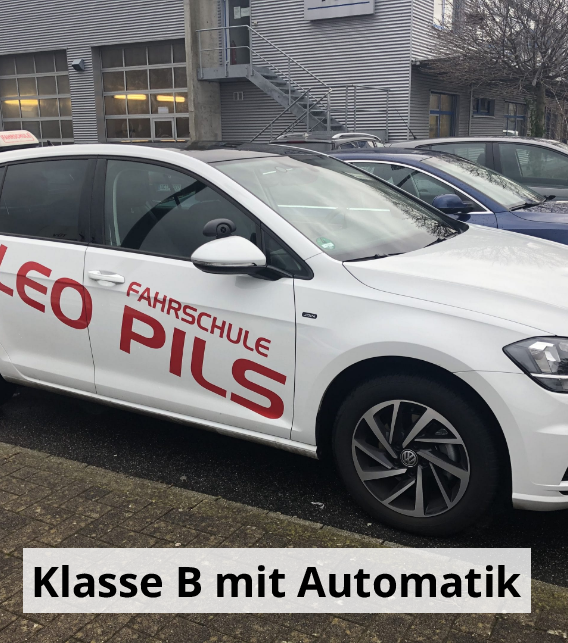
%!PS
<< /PageSize [568 643] /PageUsesTransparency true >> setpagedevice
/C { dup -16 bitshift 255 div exch dup -8 bitshift 255 and 255 div exch 255 and 255 div setrgbcolor } def
/F { [ exch dup neg 0 0 3 -1 roll 0 0 ] selectfont } def
/T { moveto show } def
/R { rectfill } def
/A { dup .setfillconstantalpha .setstrokeconstantalpha } def
/I { 5 dict begin { /h /w /y /x /name } { exch def } forall
  gsave x y translate w h scale
  w h 8 [w 0 0 h 0 0] name (r) file false 3 colorimage grestore end } def
0 .pushpdf14devicefilter
0 643 translate 1 -1 scale
4 setmiterlimit
16#FFFFFF C
0 0 568 643 R
(1.rgb) 0 0 568 643 I
0.8 A
23 548 508 65 R
/OpenSans-Bold 42 F
1 A
16#000000 C
(Klasse B mit Automatik) 31 597 T
.poppdf14devicefilter showpage
